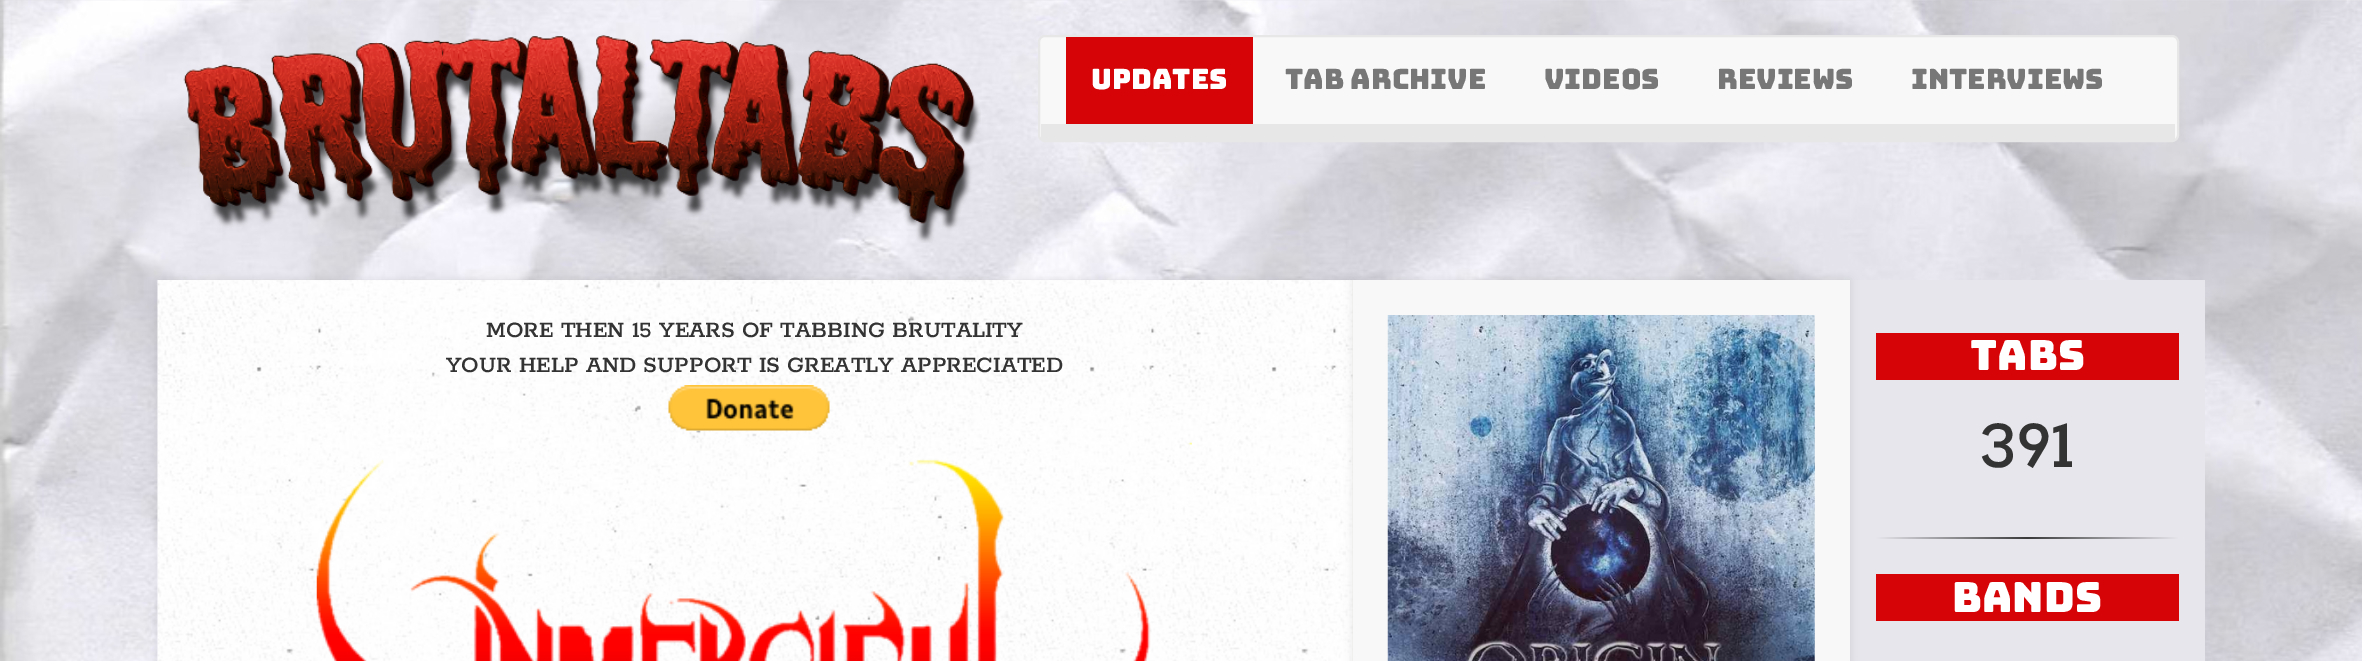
%!PS
<< /PageSize [2362 661] /PageUsesTransparency true >> setpagedevice
/m/moveto load def
/l/rlineto load def
/z/closepath load def
/f/fill load def
/s/stroke load def
/q/gsave load def
/Q_/grestore load def
/w/setlinewidth load def
/C { dup -16 bitshift 255 div exch dup -8 bitshift 255 and 255 div exch 255 and 255 div setrgbcolor } def
/F { [ exch dup neg 0 0 3 -1 roll 0 0 ] selectfont } def
/T { moveto show } def
/R { rectfill } def
/A { dup .setfillconstantalpha .setstrokeconstantalpha } def
/Q { 5 dict begin { /r /h /w /y /x } { exch def } forall
  x r add y moveto x w add y 2 copy h add r arct x w add y h add x 1 index r arct
  x y h add x y r arct x y 2 copy exch w add exch r arct closepath end } def
/S { 12 dict begin { /a /b /q /h /w /y /x } { exch def } forall gsave /was 0 def
  9 -2 -9 { dup b mul 4 div /e exch def 1 sub .425 mul 2.718 exch exp 1 add a .99 .min exch div /now exch def
    1 1 now sub 1 was sub div sub A /was now def
    w h .min e 2 mul add 0 gt { x e sub y e sub w e 2 mul add h e 2 mul add
      q e add b .6 mul add w h .min 2 div e add .min 0 .max Q fill } if } for grestore end } def
/I { 5 dict begin { /h /w /y /x /name } { exch def } forall
  gsave x y translate w h scale
  w h 8 [w 0 0 h 0 0] name (r) file false 3 colorimage grestore end } def
0 .pushpdf14devicefilter
0 661 translate 1 -1 scale
4 setmiterlimit
16#FFFFFF C
0 0 2362 661 R
(1.rgb) 0 0 2362 661 I
(2.rgb) 183 35 798 208 I
16#F8F8F8 C
1039 36 1139 105 6 Q q f Q_
16#E7E7E7 C
2 w
s
1041 124 1134 16 R
16#D60407 C
1066 37 187 87 R
/Bungee-Regular 28 F
16#FFFFFF C
(UPDATES) 1091 89 T
16#777777 C
(TAB ARCHIVE) 1285 89 T
(VIDEOS) 1544 89 T
(REVIEWS) 1717 89 T
(INTERVIEWS) 1911 89 T
16#000000 C
158 280 1195 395 0 4.5 .1 S
(3.rgb) 157 280 1196 381 I
/Rokkitt-SemiBold 24.5 F
16#333333 C
(MORE THEN 15 YEARS OF TABBING BRUTALITY) 486 337 T
(YOUR HELP AND SUPPORT IS GREATLY APPRECIATED) 446 372 T
(4.rgb) 668 385 162 46 I
(5.rgb) 316 442 876 219 I
16#E7E6EC C
1850 280 355 381 R
16#000000 C
1353 280 497 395 0 4.5 .1 S
16#F8F8F8 C
1353 280 497 381 R
(6.rgb) 1387 315 428 346 I
16#D60407 C
1876 333 303 47 R
/Bungee-Regular 41.5 F
16#FFFFFF C
(TABS) 1970 370 T
/Rokkitt-SemiBold 74 F
16#333333 C
(391) 1980 467 T
q 1876 537 m 303 0 l 0 2 l -303 0 l z clip newpath
<< /ShadingType 2 /ColorSpace /DeviceRGB /Coords [1876 538 2179 538] /Extend [true true] /Function << /FunctionType 3 /Domain [0 1] /Functions [<< /FunctionType 2 /Domain [0 1] /C0 [.906 .902 .925] /C1 [.227 .227 .231] /N 1 >> << /FunctionType 2 /Domain [0 1] /C0 [.227 .227 .231] /C1 [.906 .902 .925] /N 1 >>] /Bounds [.5] /Encode [0 1 0 1] >> >> shfill Q_
16#D60407 C
1876 574 303 47 R
/Bungee-Regular 41.5 F
16#FFFFFF C
(BANDS) 1952 612 T
.poppdf14devicefilter showpage
